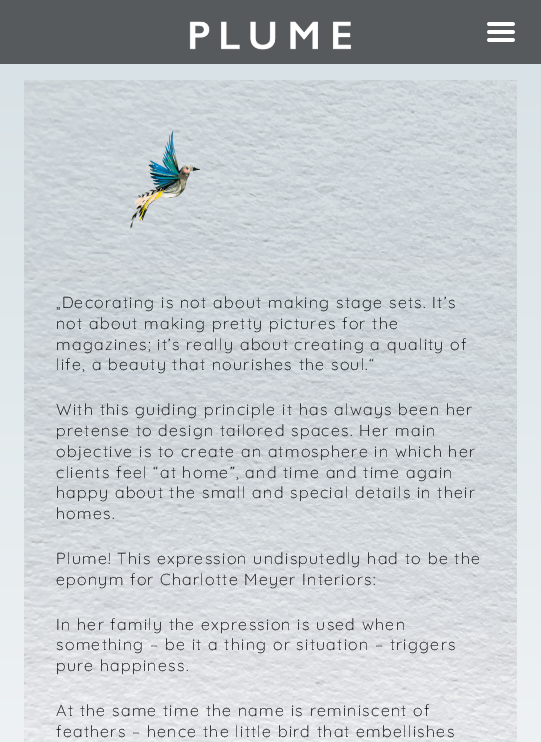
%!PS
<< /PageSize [541 742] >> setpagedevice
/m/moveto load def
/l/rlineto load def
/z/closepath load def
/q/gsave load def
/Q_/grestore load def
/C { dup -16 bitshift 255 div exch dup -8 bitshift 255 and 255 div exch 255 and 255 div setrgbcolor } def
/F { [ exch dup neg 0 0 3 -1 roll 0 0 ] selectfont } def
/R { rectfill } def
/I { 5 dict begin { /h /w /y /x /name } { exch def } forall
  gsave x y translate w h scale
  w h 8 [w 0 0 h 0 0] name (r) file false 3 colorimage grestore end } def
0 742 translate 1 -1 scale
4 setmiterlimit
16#FFFFFF C
0 0 541 742 R
q 0 64 m 541 0 l 0 678 l -541 0 l z clip newpath
<< /ShadingType 2 /ColorSpace /DeviceRGB /Coords [270 0 271 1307] /Extend [true true] /Function << /FunctionType 2 /Domain [0 1] /C0 [.843 .882 .898] /C1 [1 1 1] /N 1 >> >> shfill Q_
16#565A5C C
0 0 541 64 R
(1.rgb) 189 21 163 29 I
(2.rgb) 487 22 28 20 I
(3.rgb) 24 80 493 662 I
(4.rgb) 130 130 70 100 I
/Quicksand-Light 16 F
16#000000 C
56 308 m 1.28 0 („Decorating is not about making stage sets. It’s) ashow
56 329 m 1.28 0 (not about making pretty pictures for the) ashow
56 350 m 1.28 0 (magazines; it’s really about creating a quality of) ashow
56 370 m 1.28 0 (life, a beauty that nourishes the soul.“) ashow
56 415 m 1.28 0 (With this guiding principle it has always been her) ashow
56 436 m 1.28 0 (pretense to design tailored spaces. Her main) ashow
56 457 m 1.28 0 (objective is to create an atmosphere in which her) ashow
56 478 m 1.28 0 (clients feel “at home”, and time and time again) ashow
56 498 m 1.28 0 (happy about the small and special details in their) ashow
56 519 m 1.28 0 (homes.) ashow
56 564 m 1.28 0 (Plume! This expression undisputedly had to be the) ashow
56 585 m 1.28 0 (eponym for Charlotte Meyer Interiors:) ashow
56 630 m 1.28 0 (In her family the expression is used when) ashow
56 650 m 1.28 0 (something – be it a thing or situation – triggers) ashow
56 671 m 1.28 0 (pure happiness.) ashow
56 716 m 1.28 0 (At the same time the name is reminiscent of) ashow
56 737 m 1.28 0 (feathers – hence the little bird that embellishes) ashow
showpage
